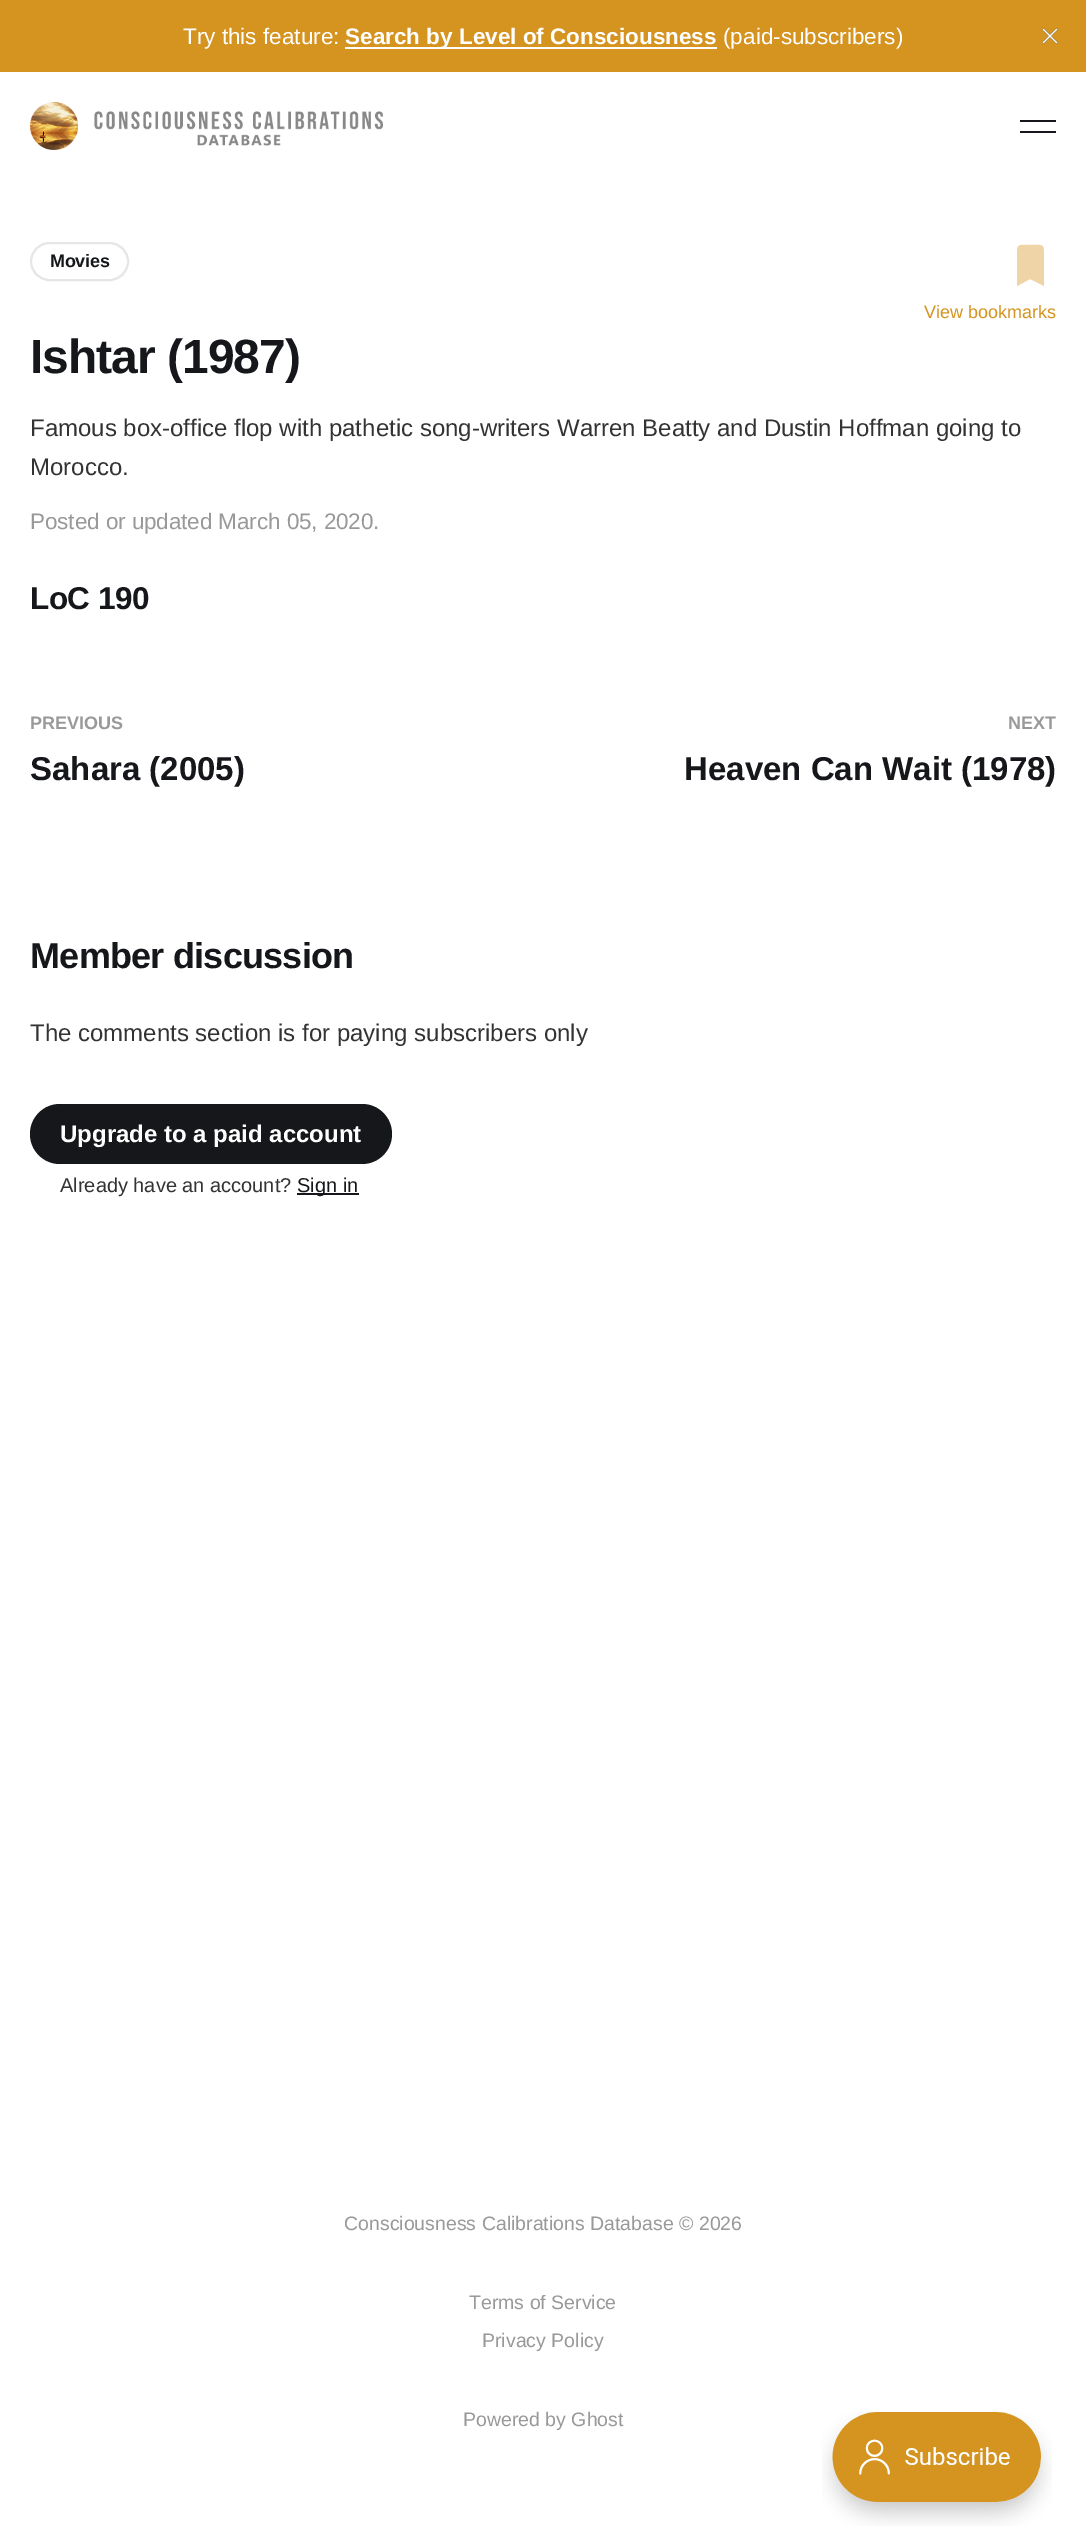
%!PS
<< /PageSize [1086 2544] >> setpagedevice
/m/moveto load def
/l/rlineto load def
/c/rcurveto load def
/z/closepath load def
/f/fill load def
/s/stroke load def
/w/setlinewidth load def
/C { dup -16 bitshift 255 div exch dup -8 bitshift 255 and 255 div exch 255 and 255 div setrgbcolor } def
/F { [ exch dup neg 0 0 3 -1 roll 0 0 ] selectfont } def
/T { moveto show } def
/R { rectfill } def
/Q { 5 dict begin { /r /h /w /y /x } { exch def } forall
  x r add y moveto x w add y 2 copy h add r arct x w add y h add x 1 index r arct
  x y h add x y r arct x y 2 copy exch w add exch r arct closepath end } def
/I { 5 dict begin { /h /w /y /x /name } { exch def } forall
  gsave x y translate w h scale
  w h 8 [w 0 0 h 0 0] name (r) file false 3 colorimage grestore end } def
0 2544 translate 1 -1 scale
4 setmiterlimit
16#FFFFFF C
0 0 1086 2544 R
16#D59320 C
0 0 1086 72 R
/LiberationSans-Regular 22.5 F
16#FFFFFF C
(Try this feature:) 183 44 T
345 47 372 2 R
/LiberationSans-Bold 22.5 F
(Search by Level of Consciousness) 345 44 T
/LiberationSans-Regular 22.5 F
(\(paid-subscribers\)) 723 44 T
(1.rgb) 1042 28 16 16 I
(2.rgb) 30 102 353 48 I
16#15171A C
1020 120 36 2 R
1020 131 36 2 R
16#E6E6E6 C
2 w
31 243 97 37 18.5 Q s
/LiberationSans-Bold 18 F
16#15171A C
50 267 m -.25 0 (Movies) ashow
16#EED4A6 C
1044 286 m -14 -7 l -13 7 l 0 -30 l 0 -13 1 -11 13 -11 c 13 0 14 -2 14 11 c z f
/LiberationSans-Regular 18 F
16#D59320 C
(View bookmarks) 924 318 T
/LiberationSans-Bold 48 F
16#15171A C
30 373 m -1 0 (Ishtar \(1987\)) ashow
/LiberationSans-Regular 24 F
16#333333 C
(Famous box-office flop with pathetic song-writers Warren Beatty and Dustin Hoffman going to) 30 436 T
(Morocco.) 30 475 T
/LiberationSans-Regular 22.5 F
16#999999 C
30 529 m -.1 0 (Posted or updated March 05, 2020.) ashow
/LiberationSans-Bold 31.5 F
16#15171A C
30 609 m -.5 0 (LoC 190) ashow
/LiberationSans-Bold 18 F
16#999999 C
(PREVIOUS) 30 729 T
/LiberationSans-Bold 33 F
16#15171A C
(Sahara \(2005\)) 30 780 T
/LiberationSans-Bold 18 F
16#999999 C
(NEXT) 1008 729 T
/LiberationSans-Bold 33 F
16#15171A C
(Heaven Can Wait \(1978\)) 684 780 T
/LiberationSans-Bold 36 F
30 968 m -.75 0 (Member discussion) ashow
/LiberationSans-Regular 24 F
16#333333 C
(The comments section is for paying subscribers only) 30 1041 T
16#15171A C
30 1104 362 60 30 Q f
/LiberationSans-Bold 24 F
16#FFFFFF C
(Upgrade to a paid account) 60 1142 T
/LiberationSans-Regular 20 F
16#333333 C
(Already have an account?) 60 1192 T
16#15171A C
297 1193 62 2 R
(Sign in) 297 1192 T
/LiberationSans-Regular 19.5 F
16#999999 C
(Consciousness Calibrations Database © 2026) 344 2230 T
(Terms of Service) 469 2309 T
(Privacy Policy) 482 2347 T
(Powered by Ghost) 463 2426 T
(3.rgb) 822 2412 230 114 I
showpage
